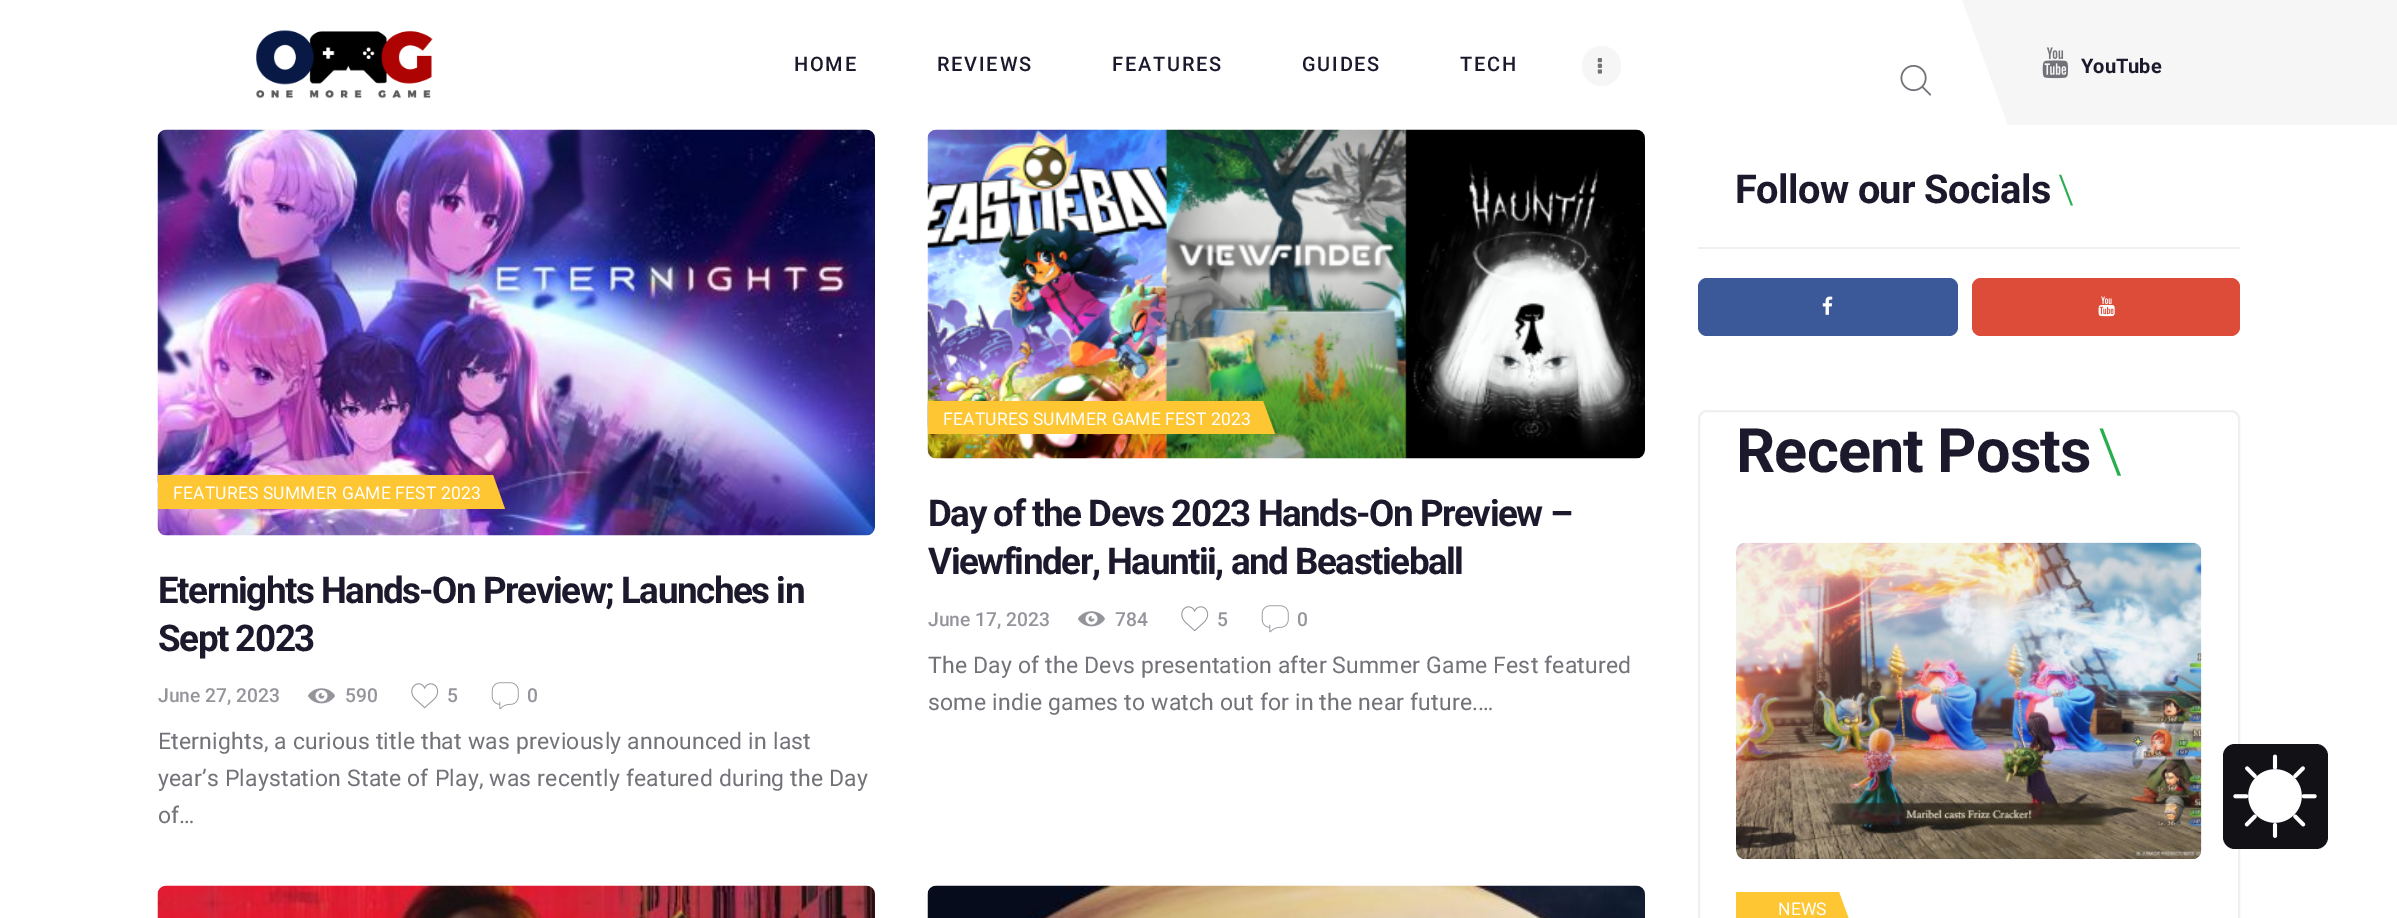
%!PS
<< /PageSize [2397 918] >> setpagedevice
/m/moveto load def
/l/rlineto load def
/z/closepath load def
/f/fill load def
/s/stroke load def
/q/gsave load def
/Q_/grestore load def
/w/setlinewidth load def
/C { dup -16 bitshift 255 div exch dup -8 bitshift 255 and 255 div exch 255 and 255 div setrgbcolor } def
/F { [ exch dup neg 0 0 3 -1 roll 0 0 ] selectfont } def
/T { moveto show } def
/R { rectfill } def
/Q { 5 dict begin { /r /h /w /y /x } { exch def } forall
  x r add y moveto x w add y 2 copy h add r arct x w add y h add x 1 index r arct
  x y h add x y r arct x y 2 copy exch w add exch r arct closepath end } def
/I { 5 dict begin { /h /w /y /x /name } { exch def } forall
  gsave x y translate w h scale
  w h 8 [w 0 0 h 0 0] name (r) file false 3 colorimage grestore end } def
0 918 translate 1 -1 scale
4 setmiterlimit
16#FFFFFF C
0 0 2397 918 R
(1.rgb) 256 30 177 69 I
/Roboto-Medium 20 F
16#1C192C C
794 71 m 1.75 0 (HOME) ashow
937 71 m 1.75 0 (REVIEWS) ashow
1112 71 m 1.75 0 (FEATURES) ashow
1302 71 m 1.75 0 (GUIDES) ashow
1460 71 m 1.75 0 (TECH) ashow
16#F6F6F6 C
1582 46 39 40 19.5 Q f
(2.rgb) 1597 58 5 16 I
(3.rgb) 1900 65 32 31 I
1885 -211 m 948 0 l 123 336 l -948 0 l z f
(4.rgb) 2042 47 26 32 I
/Roboto-Bold 20 F
16#1C192C C
(YouTube) 2081 73 T
(5.rgb) 157 129 718 407 I
q
158 130 717 406 rectclip
16#FEC632 C
139 475 m 354 0 l 12 34 l -354 0 l z f
Q_
/Roboto-Regular 17.5 F
16#FFFFFF C
173 499 m .18 0 (FEATURES SUMMER GAME FEST 2023) ashow
/Roboto-Bold 36.75 F
16#1C192C C
158 603 m -1.45 0 (Eternights Hands-On Preview; Launches in) ashow
158 651 m -1.45 0 (Sept 2023) ashow
/Roboto-Medium 19.25 F
16#94949B C
(June 27, 2023) 158 702 T
(6.rgb) 308 688 27 16 I
(590) 345 702 T
(7.rgb) 411 683 28 26 I
(5) 447 702 T
(8.rgb) 491 682 28 28 I
(0) 527 702 T
/Roboto-Regular 23 F
16#727279 C
158 749 m .18 0 (Eternights, a curious title that was previously announced in last) ashow
158 786 m .18 0 (year’s Playstation State of Play, was recently featured during the Day) ashow
158 823 m .18 0 (of…) ashow
(9.rgb) 927 129 718 330 I
q
928 130 717 329 rectclip
16#FEC632 C
909 401 m 354 0 l 12 33 l -354 0 l z f
Q_
/Roboto-Regular 17.5 F
16#FFFFFF C
943 425 m .18 0 (FEATURES SUMMER GAME FEST 2023) ashow
/Roboto-Bold 36.75 F
16#1C192C C
928 526 m -1.45 0 (Day of the Devs 2023 Hands-On Preview –) ashow
928 574 m -1.45 0 (Viewfinder, Hauntii, and Beastieball) ashow
/Roboto-Medium 19.25 F
16#94949B C
(June 17, 2023) 928 626 T
(6.rgb) 1078 611 27 16 I
(784) 1115 626 T
(7.rgb) 1181 606 28 26 I
(5) 1217 626 T
(8.rgb) 1261 605 28 28 I
(0) 1297 626 T
/Roboto-Regular 23 F
16#727279 C
928 673 m .18 0 (The Day of the Devs presentation after Summer Game Fest featured) ashow
928 710 m .18 0 (some indie games to watch out for in the near future.…) ashow
(10.rgb) 157 885 718 33 I
(11.rgb) 927 885 718 33 I
16#EFEFF0 C
1698 247 542 2 R
/Roboto-Bold 39.75 F
16#1C192C C
1735 203 m -.6 0 (Follow our Socials) ashow
/Roboto-Light 39.75 F
16#28AE4E C
2058 203 m -.6 0 (\\) ashow
16#3B5998 C
1698 278 260 58 9 Q f
(12.rgb) 1822 296 11 19 I
16#DD4B39 C
1972 278 268 58 9 Q f
(13.rgb) 2098 296 17 21 I
16#EFEFF0 C
2 w
1699 411 540 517 8 Q s
/Roboto-Bold 61.25 F
16#1C192C C
1736 472 m -.9 0 (Recent Posts) ashow
/Roboto-Light 61.25 F
16#28AE4E C
2098 472 m -.9 0 (\\) ashow
(14.rgb) 1736 542 466 317 I
q
1736 543 466 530 rectclip
16#FEC632 C
1718 892 m 121 0 l 12 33 l -121 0 l z f
Q_
/Roboto-Regular 17.5 F
16#FFFFFF C
1778 915 m .18 0 (NEWS) ashow
16#121116 C
2223 744 105 105 12 Q f
(15.rgb) 2233 754 84 84 I
showpage
